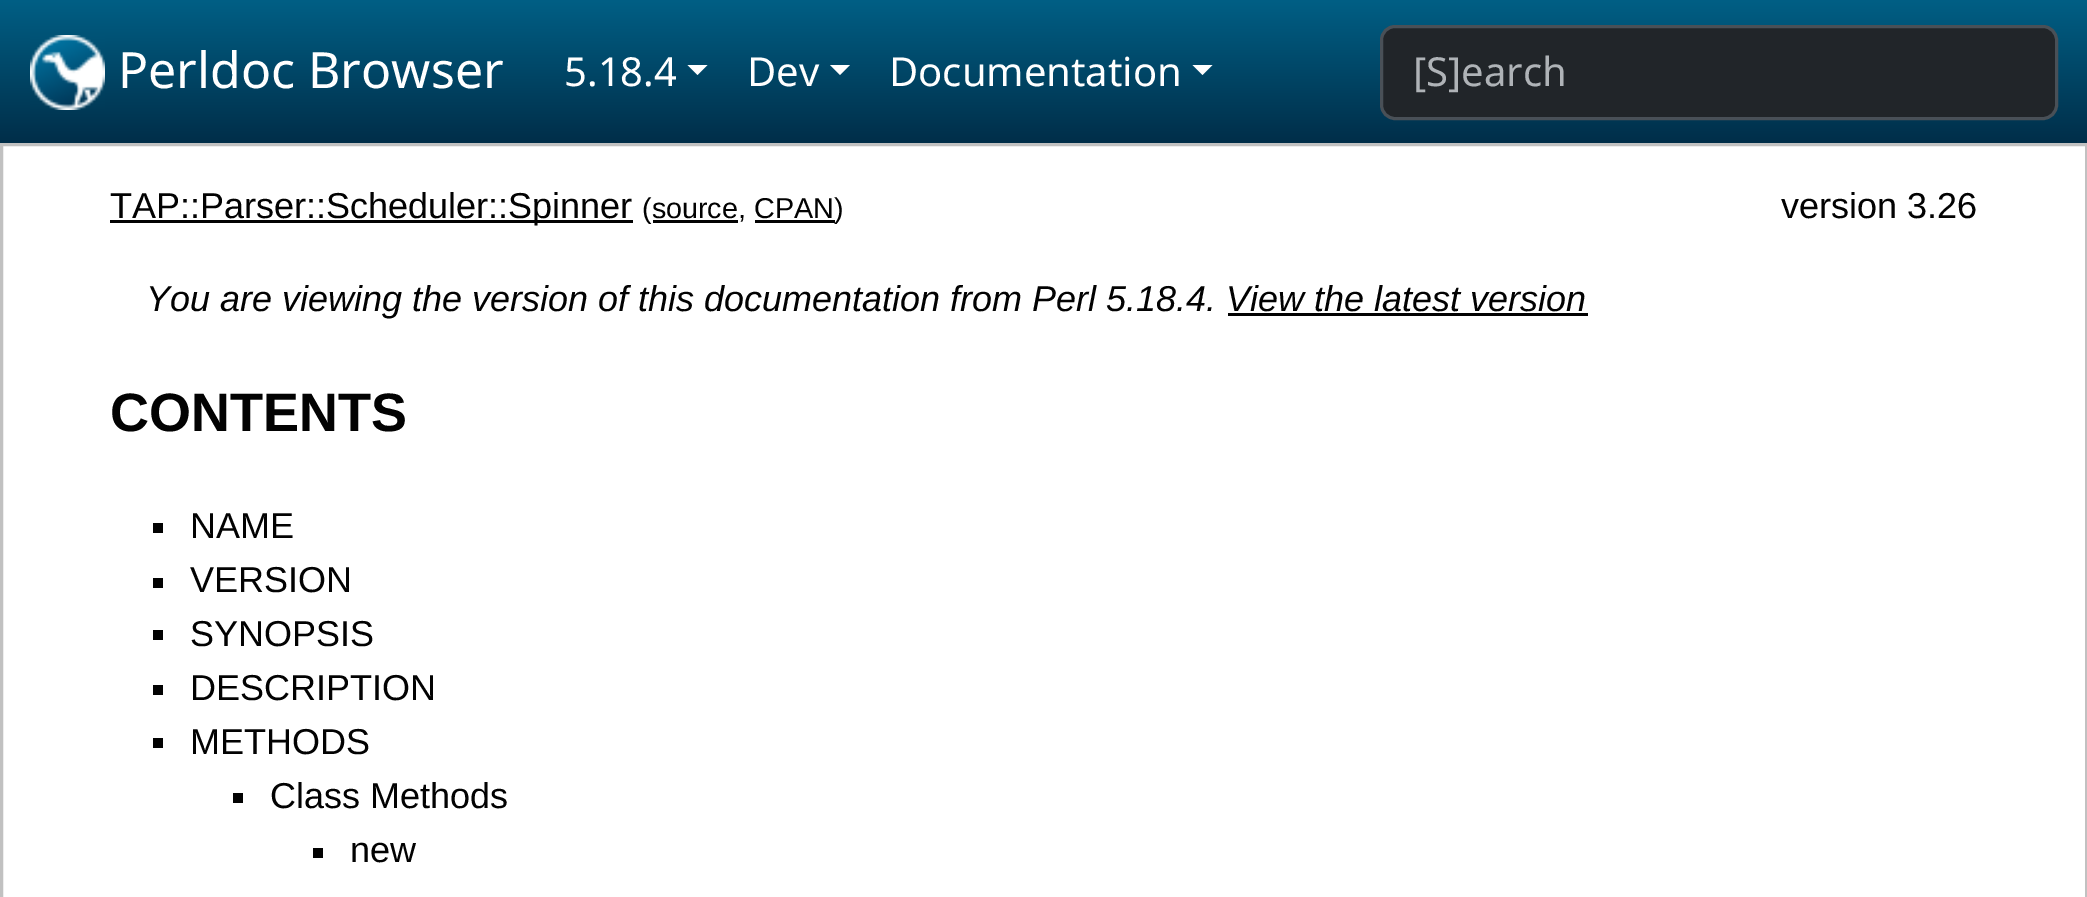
%!PS
<< /PageSize [2087 897] >> setpagedevice
/m/moveto load def
/l/rlineto load def
/z/closepath load def
/f/fill load def
/s/stroke load def
/q/gsave load def
/Q_/grestore load def
/w/setlinewidth load def
/C { dup -16 bitshift 255 div exch dup -8 bitshift 255 and 255 div exch 255 and 255 div setrgbcolor } def
/F { [ exch dup neg 0 0 3 -1 roll 0 0 ] selectfont } def
/T { moveto show } def
/R { rectfill } def
/Q { 5 dict begin { /r /h /w /y /x } { exch def } forall
  x r add y moveto x w add y 2 copy h add r arct x w add y h add x 1 index r arct
  x y h add x y r arct x y 2 copy exch w add exch r arct closepath end } def
/I { 5 dict begin { /h /w /y /x /name } { exch def } forall
  gsave x y translate w h scale
  w h 8 [w 0 0 h 0 0] name (r) file false 3 colorimage grestore end } def
0 897 translate 1 -1 scale
4 setmiterlimit
16#FFFFFF C
0 0 2087 897 R
q 0 0 m 2087 0 l 0 143 l -2087 0 l z clip newpath
<< /ShadingType 2 /ColorSpace /DeviceRGB /Coords [1044 0 1044 143] /Extend [true true] /Function << /FunctionType 2 /Domain [0 1] /C0 [0 .373 .522] /C1 [0 .18 .286] /N 1 >> >> shfill Q_
(1.rgb) 30 35 75 75 I
/NotoSans-Regular 50 F
(Perldoc Browser) 118 88 T
/NotoSans-Regular 40 F
(5.18.4) 564 86 T
687.5 65 m 20 0 l -10 10 l z f
(Dev) 747 86 T
830 65 m 20 0 l -10 10 l z f
(Documentation) 889 86 T
1192.5 65 m 20 0 l -10 10 l z f
16#212529 C
1381.5 26.5 675 92 13.5 Q q f Q_
16#495057 C
3 w
s
16#AFB3B7 C
([S]earch) 1413 86 T
16#C1C1C1 C
1.5 144.5 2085 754 rectstroke
16#020202 C
110 220 523 3 R
/LiberationSans-Regular 36 F
(TAP::Parser::Scheduler::Spinner) 110 218 T
/LiberationSans-Regular 28.75 F
(\(source, CPAN) 642 218 T
653 220 85 3 R
755 220 80 3 R
(\)) 834 218 T
/LiberationSans-Regular 36 F
(version 3.26) 1781 218 T
/LiberationSans-Italic 36 F
(You are viewing the version of this documentation from Perl 5.18.4.) 146 311 T
(View the latest version) 1226 311 T
1228 313 360 3 R
/LiberationSans-Bold 54 F
(CONTENTS) 110 431 T
153 523 10 10 R
/LiberationSans-Regular 36 F
(NAME) 190 538 T
153 578 10 10 R
(VERSION) 190 592 T
153 630 10 10 R
(SYNOPSIS) 190 646 T
153 685 10 10 R
(DESCRIPTION) 190 700 T
153 738 10 10 R
(METHODS) 190 754 T
233 793 10 10 R
(Class Methods) 270 808 T
313 848 10 10 R
(new) 350 862 T
showpage
